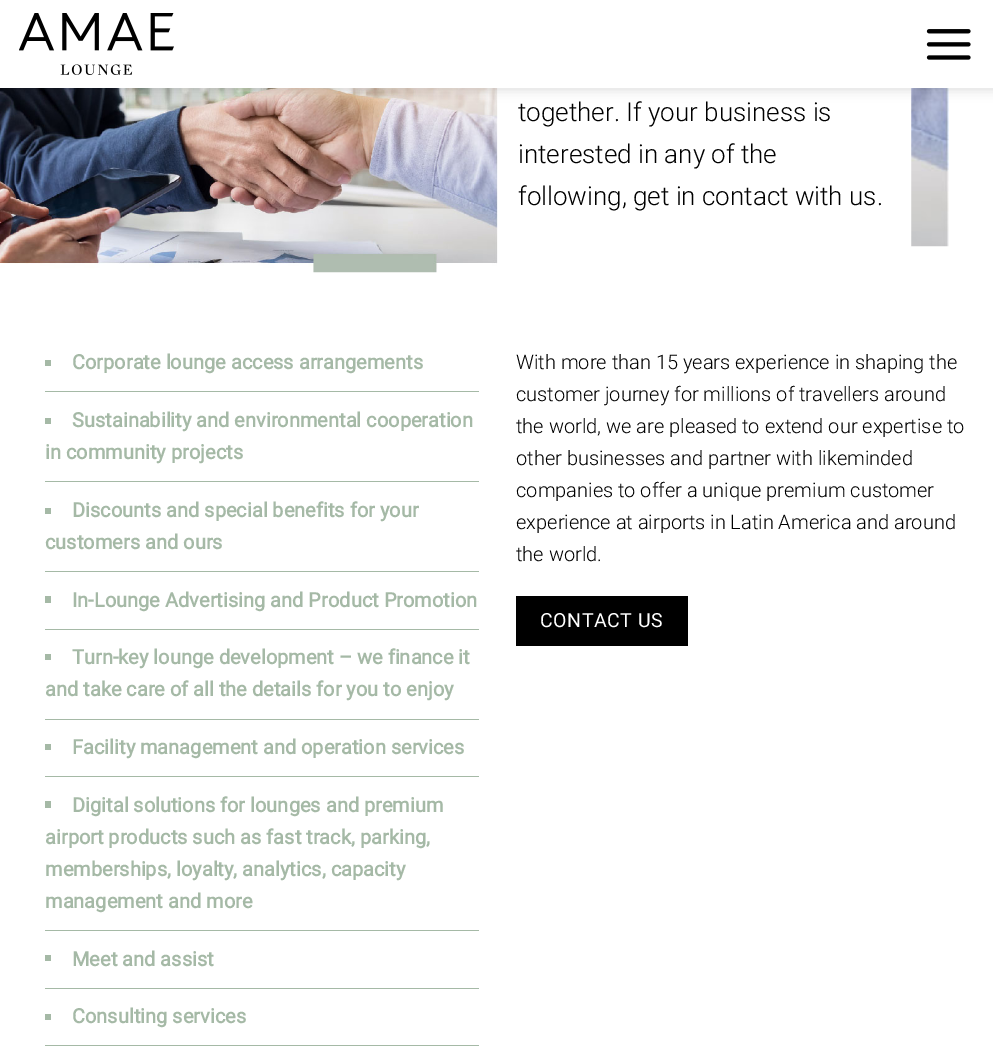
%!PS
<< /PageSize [993 1057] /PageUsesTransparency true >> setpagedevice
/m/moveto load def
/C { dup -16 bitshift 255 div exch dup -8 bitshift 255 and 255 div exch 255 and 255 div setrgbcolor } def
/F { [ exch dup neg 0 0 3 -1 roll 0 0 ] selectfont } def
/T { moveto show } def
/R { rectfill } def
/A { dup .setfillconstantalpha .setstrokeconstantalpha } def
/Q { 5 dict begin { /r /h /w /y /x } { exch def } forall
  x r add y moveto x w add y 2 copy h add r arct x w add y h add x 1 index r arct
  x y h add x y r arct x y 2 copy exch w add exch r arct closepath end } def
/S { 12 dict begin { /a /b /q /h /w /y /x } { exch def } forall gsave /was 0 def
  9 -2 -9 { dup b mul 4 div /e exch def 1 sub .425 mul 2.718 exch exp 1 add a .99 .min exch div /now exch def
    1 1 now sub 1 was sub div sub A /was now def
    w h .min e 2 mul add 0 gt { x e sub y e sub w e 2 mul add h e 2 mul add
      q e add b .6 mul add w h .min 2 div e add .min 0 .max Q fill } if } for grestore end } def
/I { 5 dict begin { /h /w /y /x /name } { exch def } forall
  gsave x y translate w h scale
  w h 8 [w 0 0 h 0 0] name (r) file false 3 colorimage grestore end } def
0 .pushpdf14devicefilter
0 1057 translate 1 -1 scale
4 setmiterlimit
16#FFFFFF C
0 0 993 1057 R
(3.rgb) 0 88 498 185 I
(4.rgb) 911 88 38 159 I
16#000000 C
1 1 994 88 0 6 .15 S
16#FFFFFF C
0 0 993 88 R
(1.rgb) 19 13 155 62 I
(2.rgb) 926 29 45 31 I
/Roboto-Light 26 F
16#000000 C
(together. If your business is) 518 121 T
(interested in any of the) 518 163 T
(following, get in contact with us.) 518 205 T
16#A5B9A6 C
45 391 434 1 R
45 360 6 6 R
/Roboto-Bold 20 F
(Corporate lounge access arrangements) 72 369 T
45 481 434 1 R
45 418 6 6 R
(Sustainability and environmental cooperation) 72 427 T
(in community projects) 45 459 T
45 571 434 1 R
45 508 6 6 R
(Discounts and special benefits for your) 72 517 T
(customers and ours) 45 549 T
45 629 434 1 R
45 596 6 7 R
(In-Lounge Advertising and Product Promotion) 72 607 T
45 719 434 1 R
45 654 6 6 R
(Turn-key lounge development – we finance it) 72 664 T
(and take care of all the details for you to enjoy) 45 696 T
45 776 434 1 R
45 744 6 6 R
(Facility management and operation services) 72 754 T
45 930 434 1 R
45 801 6 7 R
(Digital solutions for lounges and premium) 72 812 T
(airport products such as fast track, parking,) 45 844 T
(memberships, loyalty, analytics, capacity) 45 876 T
(management and more) 45 908 T
45 988 434 1 R
45 955 6 6 R
(Meet and assist) 72 966 T
45 1045 434 1 R
45 1014 6 6 R
(Consulting services) 72 1023 T
/Roboto-Light 20 F
16#000000 C
(With more than 15 years experience in shaping the) 516 369 T
(customer journey for millions of travellers around) 516 401 T
(the world, we are pleased to extend our expertise to) 516 433 T
(other businesses and partner with likeminded) 516 465 T
(companies to offer a unique premium customer) 516 497 T
(experience at airports in Latin America and around) 516 529 T
(the world.) 516 561 T
516 596 172 50 R
/Roboto-Regular 19.5 F
16#FFFFFF C
540 627 m .5 0 (CONTACT US) ashow
.poppdf14devicefilter showpage
